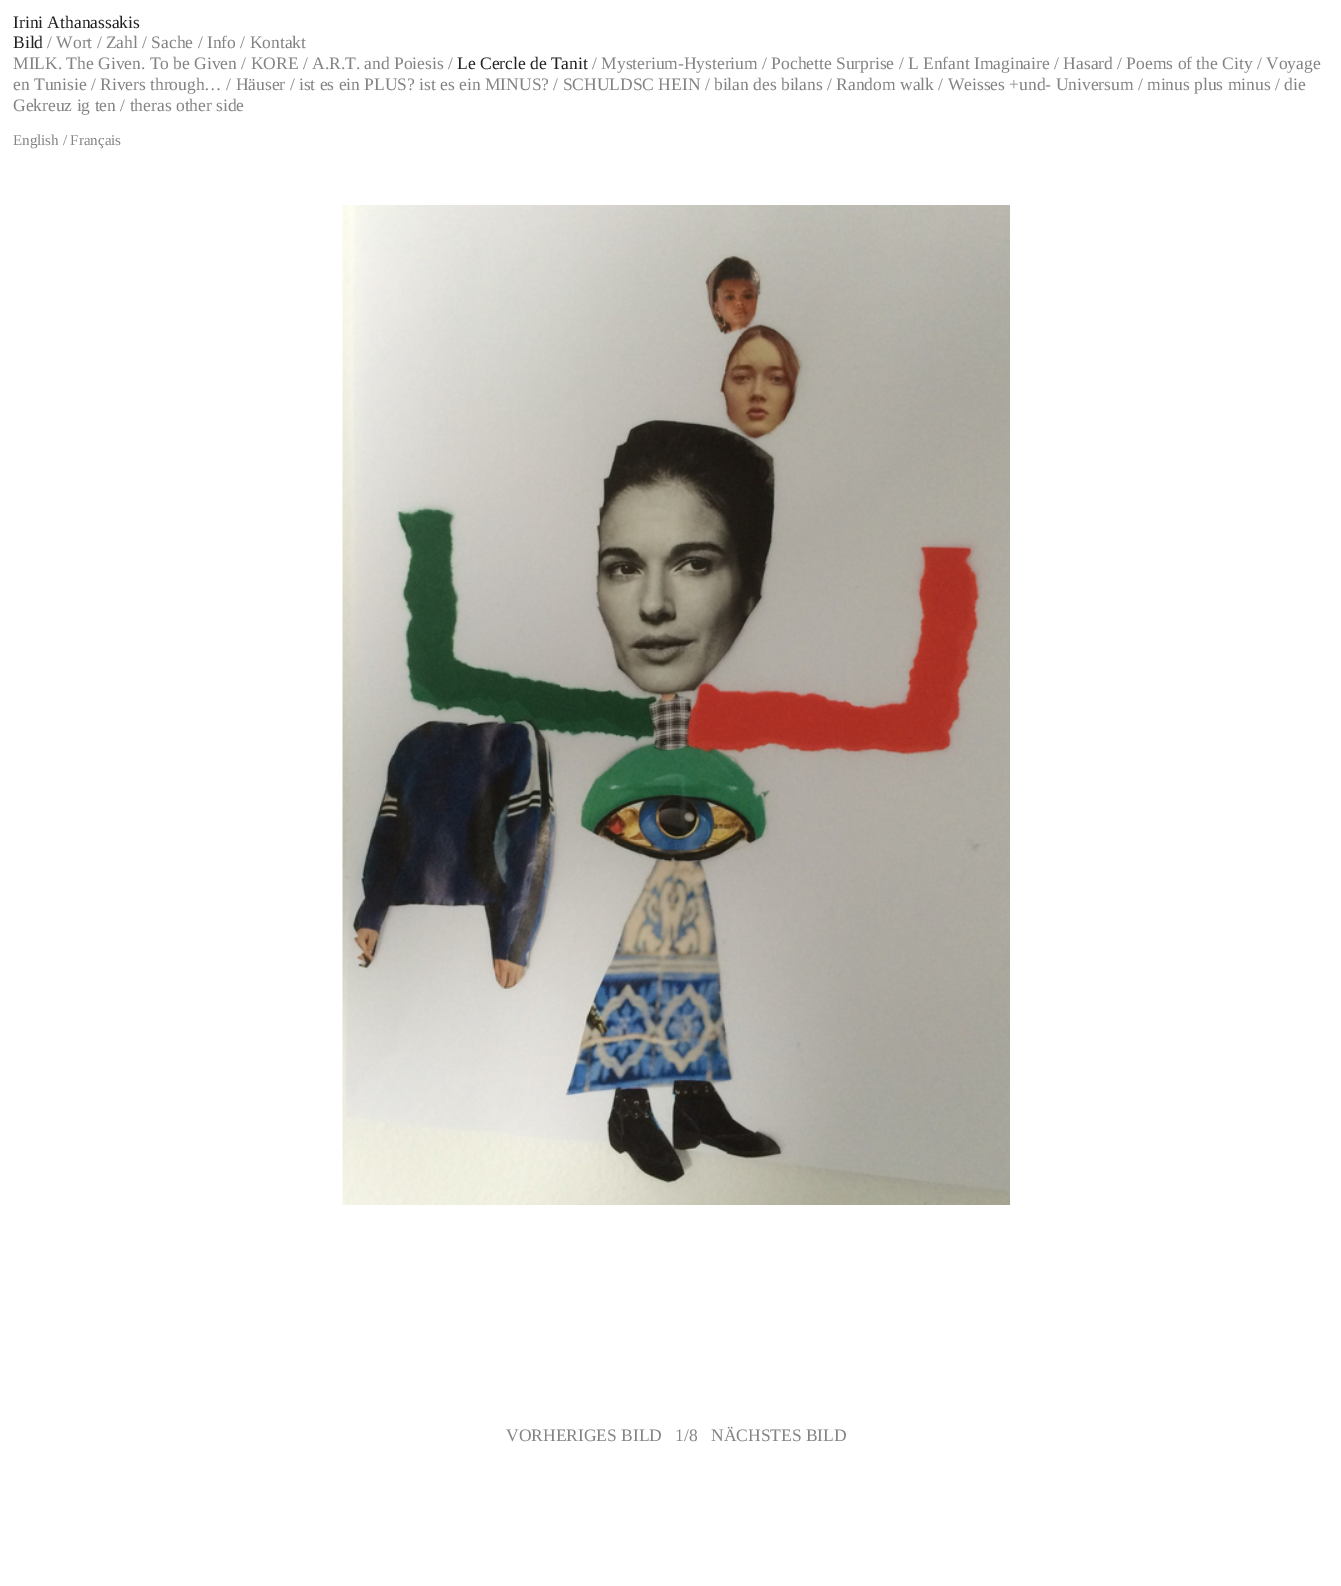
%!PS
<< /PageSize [1341 1586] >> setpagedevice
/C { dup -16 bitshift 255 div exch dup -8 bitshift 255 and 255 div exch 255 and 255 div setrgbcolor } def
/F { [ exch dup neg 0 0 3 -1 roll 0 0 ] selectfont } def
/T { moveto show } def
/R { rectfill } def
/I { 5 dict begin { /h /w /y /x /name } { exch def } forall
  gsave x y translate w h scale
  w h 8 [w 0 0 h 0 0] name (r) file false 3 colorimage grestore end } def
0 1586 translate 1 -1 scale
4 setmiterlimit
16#FFFFFF C
0 0 1341 1586 R
/LiberationSerif-Regular 17.5 F
16#222222 C
(Irini Athanassakis) 13 28 T
(Bild) 13 48 T
16#838383 C
(/ Wort / Zahl / Sache / Info / Kontakt) 47 48 T
(MILK. The Given. To be Given / KORE / A.R.T. and Poiesis /) 13 69 T
16#222222 C
(Le Cercle de Tanit) 457 69 T
16#838383 C
(/ Mysterium-Hysterium / Pochette Surprise / L Enfant Imaginaire / Hasard / Poems of the City / Voyage) 592 69 T
(en Tunisie / Rivers through… / Häuser / ist es ein PLUS? ist es ein MINUS? / SCHULDSC HEIN / bilan des bilans / Random walk / Weisses +und- Universum / minus plus minus / die) 13 90 T
(Gekreuz ig ten / theras other side) 13 111 T
/LiberationSerif-Regular 15 F
(English / Français) 13 145 T
(1.rgb) 342 205 668 1000 I
/LiberationSerif-Regular 17.5 F
(VORHERIGES BILD) 506 1441 T
(1/8) 675 1441 T
(NÄCHSTES BILD) 711 1441 T
showpage
